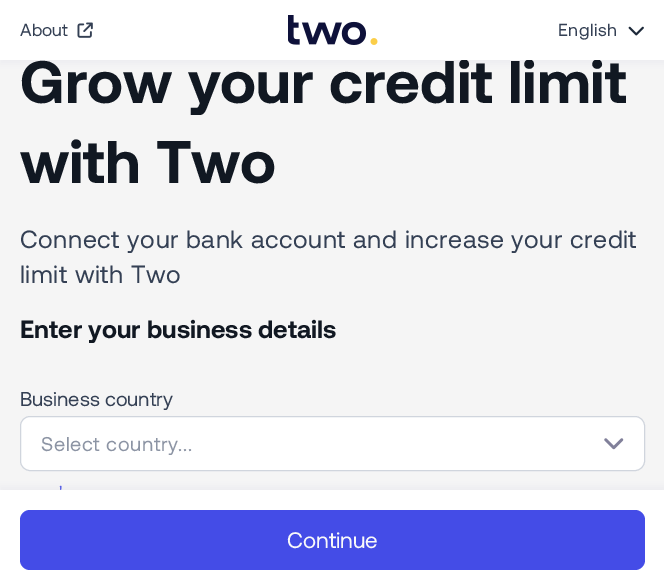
%!PS
<< /PageSize [664 579] /PageUsesTransparency true >> setpagedevice
/m/moveto load def
/f/fill load def
/s/stroke load def
/q/gsave load def
/Q_/grestore load def
/C { dup -16 bitshift 255 div exch dup -8 bitshift 255 and 255 div exch 255 and 255 div setrgbcolor } def
/F { [ exch dup neg 0 0 3 -1 roll 0 0 ] selectfont } def
/T { moveto show } def
/R { rectfill } def
/A { dup .setfillconstantalpha .setstrokeconstantalpha } def
/Q { 5 dict begin { /r /h /w /y /x } { exch def } forall
  x r add y moveto x w add y 2 copy h add r arct x w add y h add x 1 index r arct
  x y h add x y r arct x y 2 copy exch w add exch r arct closepath end } def
/S { 12 dict begin { /a /b /q /h /w /y /x } { exch def } forall gsave /was 0 def
  9 -2 -9 { dup b mul 4 div /e exch def 1 sub .425 mul 2.718 exch exp 1 add a .99 .min exch div /now exch def
    1 1 now sub 1 was sub div sub A /was now def
    w h .min e 2 mul add 0 gt { x e sub y e sub w e 2 mul add h e 2 mul add
      q e add b .6 mul add w h .min 2 div e add .min 0 .max Q fill } if } for grestore end } def
/I { 5 dict begin { /h /w /y /x /name } { exch def } forall
  gsave x y translate w h scale
  w h 8 [w 0 0 h 0 0] name (r) file false 3 colorimage grestore end } def
0 .pushpdf14devicefilter
0 579 translate 1 -1 scale
4 setmiterlimit
16#F5F5F5 C
0 0 664 579 R
16#D0D5DD C
0 4 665 60 0 4 .25 S
/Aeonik-Bold 60 F
16#111822 C
(Grow your credit limit) 20 103 T
16#FFFFFF C
0 0 664 60 R
/Aeonik-Regular 17.5 F
16#344054 C
(About) 20 36 T
(1.rgb) 77 22 16 16 I
(2.rgb) 288 15 90 30 I
558 36 m .6 0 (English) ashow
(3.rgb) 628 26 16 10 I
/Aeonik-Bold 60 F
16#111822 C
(with Two) 20 183 T
/Aeonik-Regular 25 F
16#344054 C
20 248 m .6 0 (Connect your bank account and increase your credit) ashow
20 283 m .6 0 (limit with Two) ashow
/Aeonik-Bold 25 F
16#111822 C
(Enter your business details) 20 338 T
/Aeonik-Regular 20 F
16#344054 C
(Business country) 20 406 T
16#FFFFFF C
20.5 416.5 624 54 9.5 Q q f Q_
16#D0D5DD C
s
16#8C94A4 C
41 451 m .6 0 (Select country...) ashow
(4.rgb) 604 438 20 12 I
/Aeonik-Regular 17.5 F
16#444CE7 C
(') 59 498 T
16#D0D5DD C
0 486 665 90 0 4 .25 S
16#FFFFFF C
0 490 664 89 R
16#444CE7 C
20 510 625 60 10 Q f
/Aeonik-Regular 22.5 F
16#F9F9F9 C
(Continue) 287 548 T
.poppdf14devicefilter showpage
